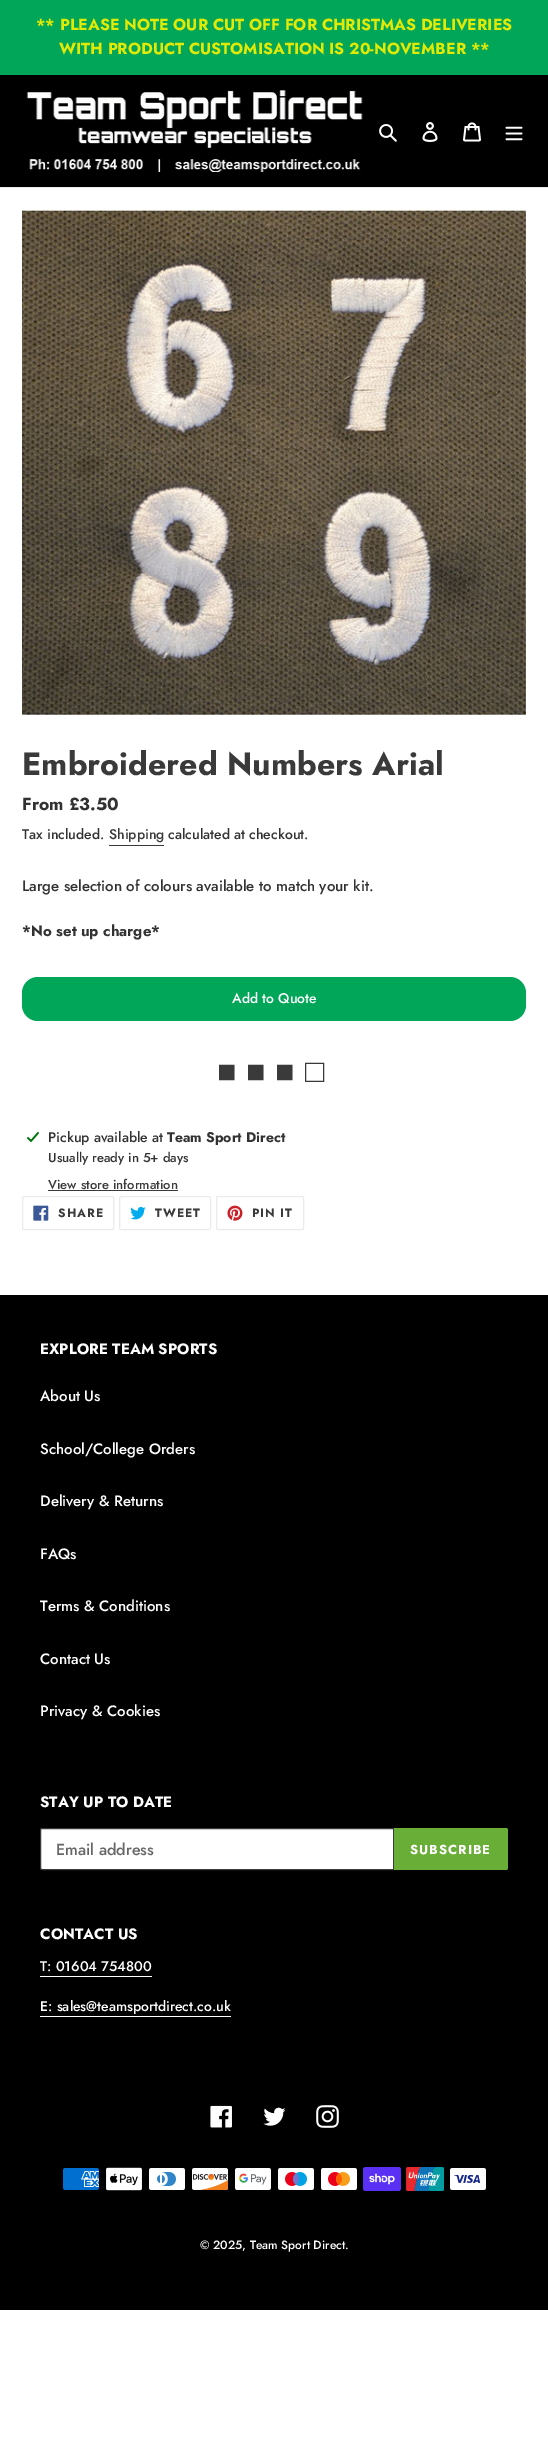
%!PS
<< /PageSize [548 2449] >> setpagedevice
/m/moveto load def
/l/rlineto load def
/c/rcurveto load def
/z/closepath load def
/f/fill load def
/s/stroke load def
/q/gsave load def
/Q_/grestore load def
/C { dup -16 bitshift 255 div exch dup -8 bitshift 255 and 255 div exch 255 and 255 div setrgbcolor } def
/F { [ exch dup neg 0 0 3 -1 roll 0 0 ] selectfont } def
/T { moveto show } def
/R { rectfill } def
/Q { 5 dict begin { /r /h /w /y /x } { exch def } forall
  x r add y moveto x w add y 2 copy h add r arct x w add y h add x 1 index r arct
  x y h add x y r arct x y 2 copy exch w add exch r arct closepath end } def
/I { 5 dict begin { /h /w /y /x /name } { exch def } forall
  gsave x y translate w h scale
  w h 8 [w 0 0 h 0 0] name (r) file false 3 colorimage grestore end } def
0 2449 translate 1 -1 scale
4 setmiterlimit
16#FFFFFF C
0 0 548 2449 R
16#01A659 C
0 0 548 75 R
/Jost-Bold 16 F
16#E1EA06 C
(** PLEASE NOTE OUR CUT OFF FOR CHRISTMAS DELIVERIES) 36 30 T
(WITH PRODUCT CUSTOMISATION IS 20-NOVEMBER **) 59 54 T
16#000000 C
0 75 548 112 R
16#EBEBEB C
0 187 548 1 R
(1.rgb) 26 90 337 82 I
(2.rgb) 379 124 18 18 I
(3.rgb) 422 122 16 20 I
(4.rgb) 463 122 18 20 I
(5.rgb) 505 126 18 15 I
(6.rgb) 22 210 504 505 I
/Jost-Bold 32 F
16#3A3A3A C
(Embroidered Numbers Arial) 22 775 T
/Jost-Bold 17.5 F
16#333232 C
(From £3.50) 22 810 T
/Jost-Medium 14 F
(Tax included.) 22 839 T
16#3A3A3A C
(Shipping) 109 839 T
109 845 55 1 R
16#333232 C
(calculated at checkout.) 168 839 T
/Jost-Medium 15 F
(Large selection of colours available to match your kit.) 22 891 T
/Jost-Bold 15 F
(*No set up charge*) 22 936 T
16#01A659 C
22 977 504 44 16 Q f
/Jost-Medium 14 F
16#FFFFFF C
(Add to Quote) 232 1003 T
/LiberationSans-Regular 32 F
16#3A3A3A C
217 1082 m 1 0 32 (■ ■ ■ □) widthshow
(7.rgb) 27 1132 12 10 I
/Jost-Medium 14 F
16#333232 C
(Pickup available at) 48 1142 T
/Jost-Bold 14 F
(Team Sport Direct) 167 1142 T
/Jost-Medium 13 F
(Usually ready in 5+ days) 48 1162 T
16#3A3A3A C
(View store information) 48 1189 T
48 1190 130 1 R
16#EBEBEB C
22.5 1196.5 91 33 1.5 Q s
(8.rgb) 33 1205 16 16 I
/Jost-Bold 12 F
16#3A3A3A C
58 1217 m 1 0 (SHARE) ashow
16#EBEBEB C
119.5 1196.5 91 33 1.5 Q s
(9.rgb) 130 1206 16 14 I
16#3A3A3A C
155 1217 m 1 0 (TWEET) ashow
16#EBEBEB C
216.5 1196.5 87 33 1.5 Q s
(10.rgb) 227 1205 16 16 I
16#3A3A3A C
252 1217 m 1 0 (PIN IT) ashow
16#000000 C
0 1295 548 1015 R
/Jost-Bold 15 F
16#FFFFFF C
(EXPLORE TEAM SPORTS) 40 1354 T
/Jost-Medium 15 F
(About Us) 40 1401 T
(School/College Orders) 40 1454 T
(Delivery & Returns) 40 1506 T
(FAQs) 40 1559 T
(Terms & Conditions) 40 1611 T
(Contact Us) 40 1664 T
(Privacy & Cookies) 40 1716 T
/Jost-Bold 15 F
(STAY UP TO DATE) 40 1807 T
42 1828.5 m 351.5 0 l 0 41 l -351.5 0 l -1 0 -1.5 -.5 -1.5 -1.5 c 0 -38 l 0 -1 .5 -1.5 1.5 -1.5 c z q f Q_
16#3A3A3A C
s
/Jost-Medium 16 F
16#666666 C
(Email address) 56 1855 T
16#68AE37 C
394 1828 m 112 0 l 1 0 2 1 2 2 c 0 38 l 0 1 -1 2 -2 2 c -112 0 l z f
/Jost-Bold 13 F
16#FFFFFF C
410 1854 m 1 0 (SUBSCRIBE) ashow
/Jost-Bold 15 F
(CONTACT US) 40 1939 T
/Jost-Medium 14 F
(T: 01604 754800) 40 1971 T
40 1976 112 1 R
(E: sales@teamsportdirect.co.uk) 40 2011 T
40 2016 191 1 R
(11.rgb) 210 2105 22 23 I
(12.rgb) 263 2107 23 19 I
(13.rgb) 316 2105 23 23 I
(14.rgb) 63 2168 36 22 I
(15.rgb) 106 2167 36 24 I
(16.rgb) 149 2168 36 22 I
(17.rgb) 192 2168 37 22 I
(18.rgb) 235 2168 36 22 I
(19.rgb) 278 2168 36 22 I
(20.rgb) 321 2168 36 22 I
(21.rgb) 363 2167 38 24 I
(22.rgb) 406 2167 38 24 I
(23.rgb) 450 2168 36 22 I
/Jost-Medium 12 F
(© 2025, Team Sport Direct.) 200 2249 T
showpage
